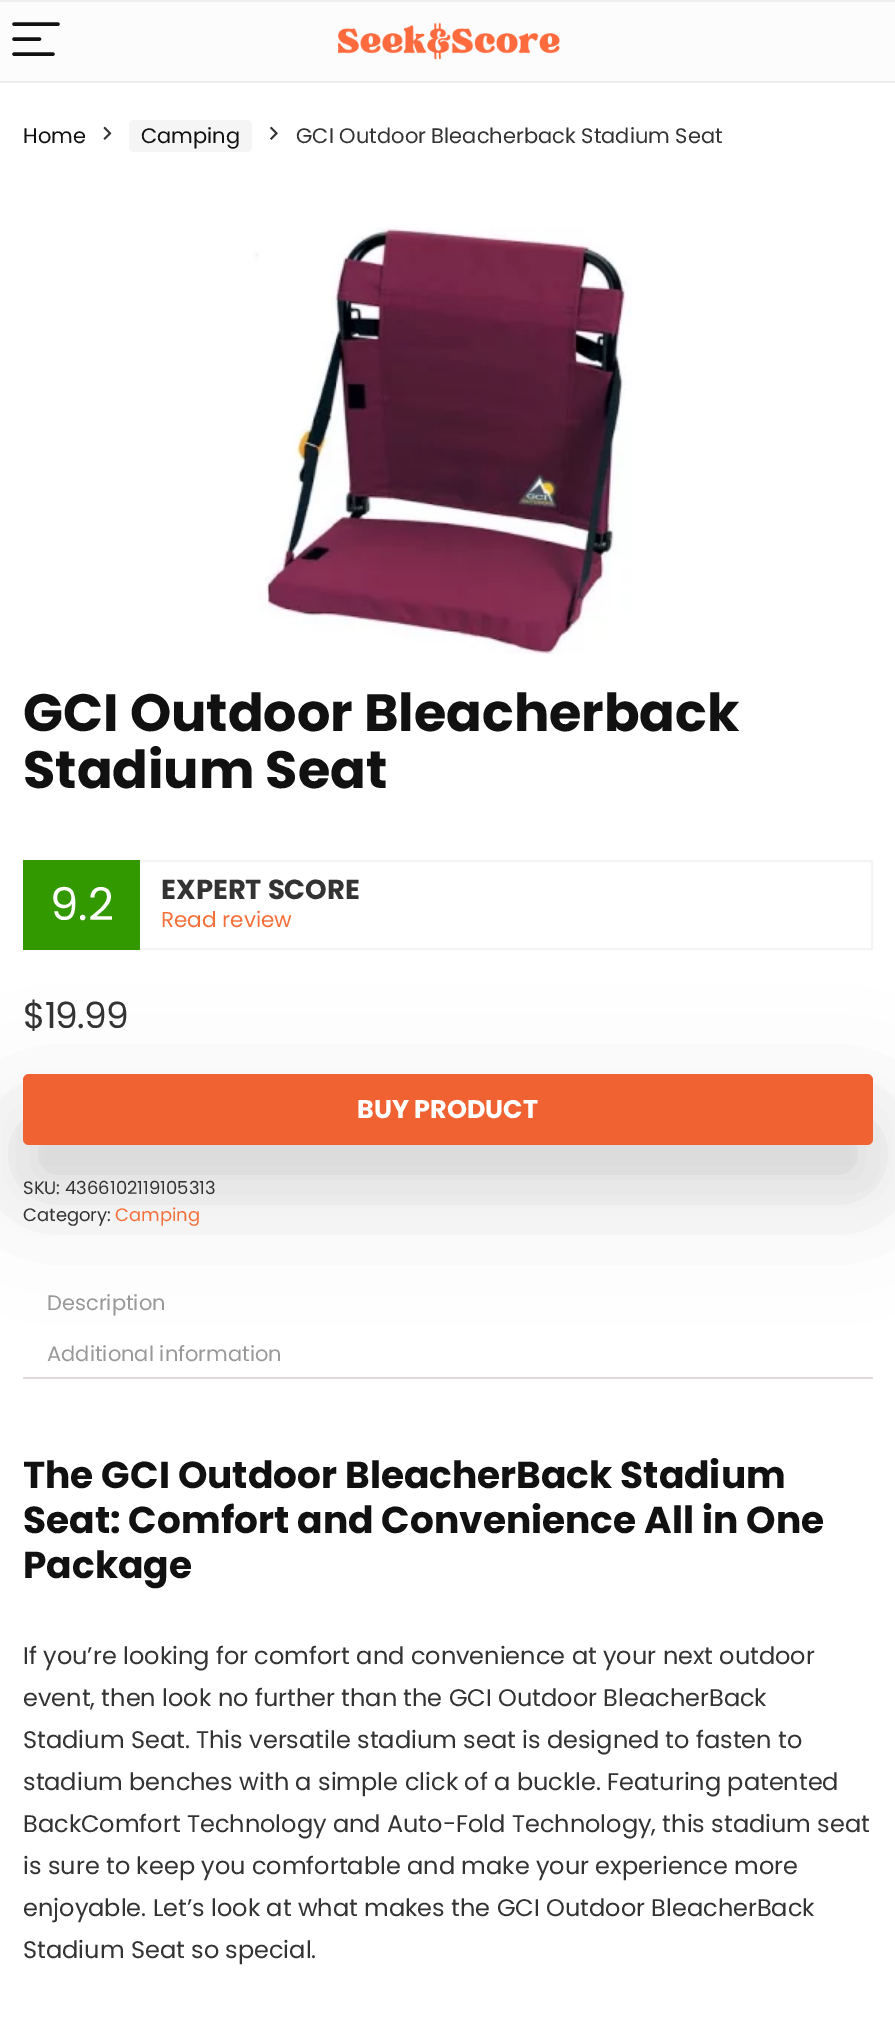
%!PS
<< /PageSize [895 2031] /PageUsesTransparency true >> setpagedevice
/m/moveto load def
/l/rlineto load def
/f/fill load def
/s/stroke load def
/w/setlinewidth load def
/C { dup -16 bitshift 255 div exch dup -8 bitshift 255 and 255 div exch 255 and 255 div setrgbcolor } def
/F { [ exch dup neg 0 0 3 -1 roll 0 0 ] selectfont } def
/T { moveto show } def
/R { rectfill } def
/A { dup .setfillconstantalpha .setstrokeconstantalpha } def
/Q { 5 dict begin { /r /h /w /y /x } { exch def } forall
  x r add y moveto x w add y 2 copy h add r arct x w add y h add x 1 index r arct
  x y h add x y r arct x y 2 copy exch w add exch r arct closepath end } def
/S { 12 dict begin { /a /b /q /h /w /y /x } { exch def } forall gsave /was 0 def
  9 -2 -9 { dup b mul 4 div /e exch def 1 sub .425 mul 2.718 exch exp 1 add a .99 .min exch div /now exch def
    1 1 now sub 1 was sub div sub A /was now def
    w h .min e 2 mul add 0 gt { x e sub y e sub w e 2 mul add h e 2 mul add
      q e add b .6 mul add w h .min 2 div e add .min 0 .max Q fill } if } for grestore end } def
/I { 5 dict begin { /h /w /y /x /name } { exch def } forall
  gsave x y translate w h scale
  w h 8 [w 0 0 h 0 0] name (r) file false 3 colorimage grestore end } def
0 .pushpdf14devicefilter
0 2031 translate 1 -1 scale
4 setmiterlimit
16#FFFFFF C
0 0 895 2031 R
16#FCFCFC C
0 2 895 79 R
16#EEEEEE C
0 0 895 2 R
0 81 895 2 R
16#111111 C
3.4 w
1 setlinecap
14 24 m 44 0 l 14 39 m 25.5 0 l 14 54 m 39 0 l s
(1.rgb) 337 22 223 38 I
/Poppins-Regular 21 F
(Home) 23 143 T
(2.rgb) 103 126 9 14 I
16#F5F5F5 C
129 120 123 32 5 Q f
16#111111 C
(Camping) 141 143 T
(3.rgb) 270 126 8 14 I
16#333333 C
(GCI Outdoor Bleacherback Stadium Seat) 296 143 T
(4.rgb) 253 227 379 427 I
/Poppins-Bold 52.5 F
16#111111 C
(GCI Outdoor Bleacherback) 23 731 T
(Stadium Seat) 23 788 T
16#F4F4F4 C
2 w
0 setlinecap
24 861 848 88 rectstroke
16#339900 C
23 860 117 90 R
/Poppins-Regular 45 F
16#FFFFFF C
(9.2) 50 920 T
/Poppins-Bold 27.5 F
16#333333 C
(EXPERT SCORE) 161 899 T
/Poppins-Regular 21.5 F
16#F56F38 C
(Read review) 161 927 T
/Poppins-Regular 36 F
16#333333 C
23 1028 m -.75 0 ($19.99) ashow
16#000000 C
23 1119 850 71 6 60 .12 S
23 1116 850 71 6 28.5 .06 S
16#F16233 C
23 1074 850 71 6 Q f
/Poppins-Bold 25.5 F
16#FFFFFF C
(BUY PRODUCT) 357 1118 T
/Poppins-Regular 18 F
16#333333 C
(SKU: 4366102119105313) 23 1194 T
(Category:) 23 1221 T
16#F56F38 C
(Camping) 115 1221 T
/Poppins-Regular 21 F
16#999999 C
(Description) 47 1310 T
(Additional information) 47 1361 T
16#E0DADF C
23 1377 850 2 R
/Poppins-Bold 37.5 F
16#111111 C
(The GCI Outdoor BleacherBack Stadium) 23 1488 T
(Seat: Comfort and Convenience All in One) 23 1533 T
(Package) 23 1578 T
/Poppins-Regular 24 F
16#333333 C
(If you’re looking for comfort and convenience at your next outdoor) 23 1664 T
(event, then look no further than the GCI Outdoor BleacherBack) 23 1706 T
(Stadium Seat. This versatile stadium seat is designed to fasten to) 23 1748 T
(stadium benches with a simple click of a buckle. Featuring patented) 23 1790 T
(BackComfort Technology and Auto-Fold Technology, this stadium seat) 23 1832 T
(is sure to keep you comfortable and make your experience more) 23 1874 T
(enjoyable. Let’s look at what makes the GCI Outdoor BleacherBack) 23 1916 T
(Stadium Seat so special.) 23 1958 T
.poppdf14devicefilter showpage
